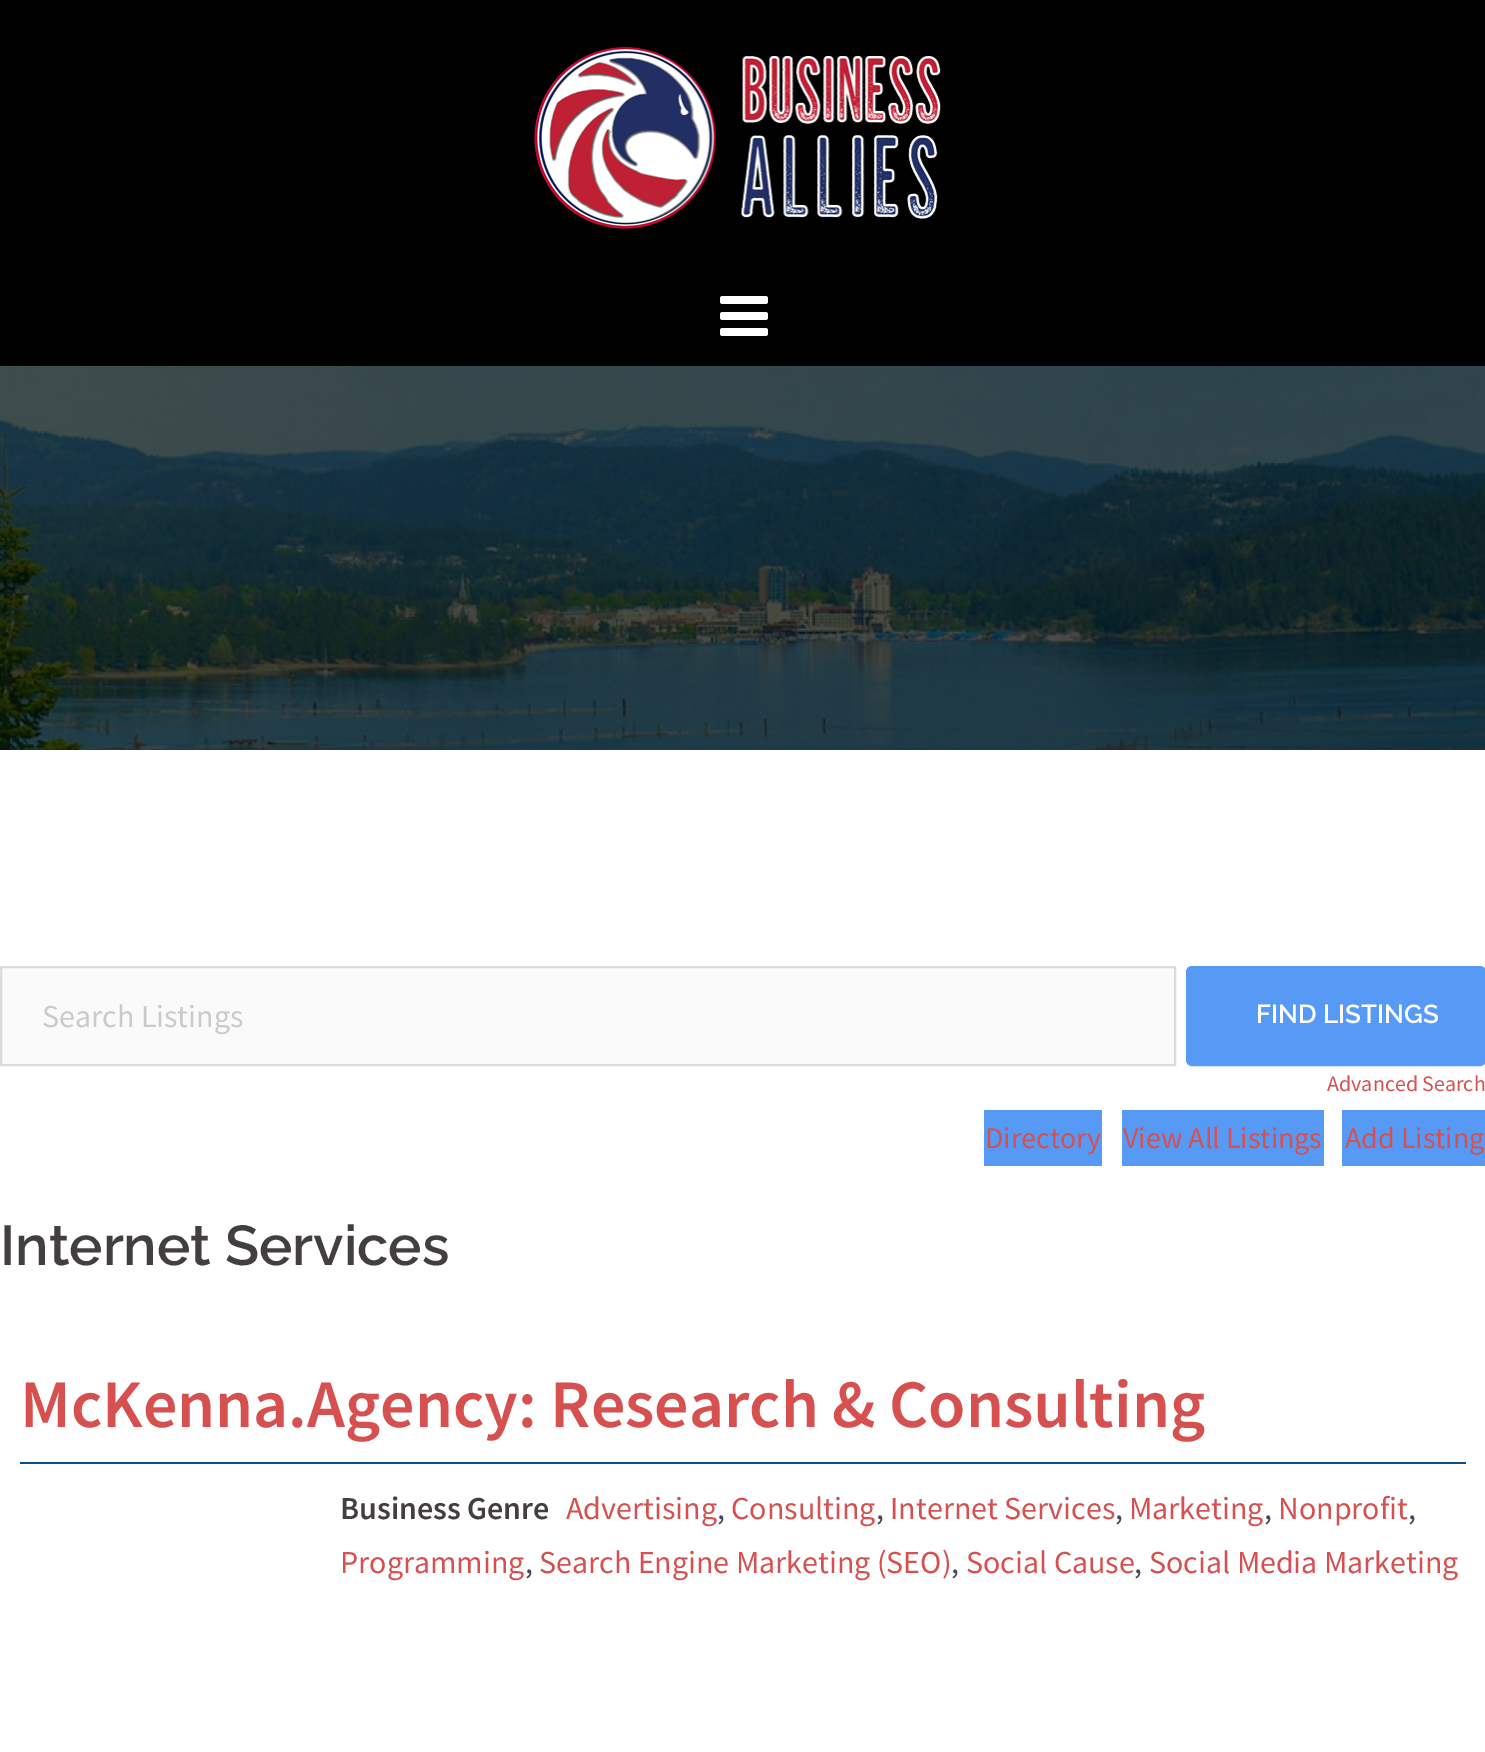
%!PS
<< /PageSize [1485 1752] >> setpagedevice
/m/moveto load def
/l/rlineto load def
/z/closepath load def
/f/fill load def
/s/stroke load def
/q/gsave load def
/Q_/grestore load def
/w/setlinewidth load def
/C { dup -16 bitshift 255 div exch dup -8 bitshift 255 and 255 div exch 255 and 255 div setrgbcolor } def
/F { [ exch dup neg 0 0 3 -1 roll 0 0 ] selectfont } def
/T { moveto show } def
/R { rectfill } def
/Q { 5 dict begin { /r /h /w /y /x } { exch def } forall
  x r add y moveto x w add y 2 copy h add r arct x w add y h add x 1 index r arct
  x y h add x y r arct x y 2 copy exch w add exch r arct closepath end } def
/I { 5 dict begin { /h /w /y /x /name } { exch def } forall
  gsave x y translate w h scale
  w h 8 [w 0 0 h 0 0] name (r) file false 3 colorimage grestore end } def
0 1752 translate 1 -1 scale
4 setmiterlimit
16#FFFFFF C
0 0 1485 1752 R
16#000000 C
0 0 1485 366 R
(1.rgb) 534 47 407 182 I
(2.rgb) 720 296 48 40 I
(3.rgb) 0 366 1485 384 I
16#FAFAFA C
1 967 m 1174 0 l 0 98 l -1174 0 l z q f Q_
16#DBDBDB C
2 w
s
/SourceSansPro-Regular 32 F
16#CACACA C
(Search Listings) 42 1027 T
16#569AF6 C
1187 967 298 98 5 Q q f Q_
s
/Raleway-SemiBold 26 F
16#FFFFFF C
(FIND LISTINGS) 1256 1023 T
/SourceSansPro-Regular 22 F
16#D65050 C
(Advanced Search) 1327 1091 T
16#569AF6 C
984 1110 118 56 R
/SourceSansPro-Regular 30 F
16#D65050 C
(Directory) 985 1148 T
16#569AF6 C
1122 1110 202 56 R
16#D65050 C
(View All Listings) 1123 1148 T
16#569AF6 C
1342 1110 143 56 R
16#D65050 C
(Add Listing) 1345 1148 T
/Raleway-SemiBold 56 F
16#443F3F C
(Internet Services) 0 1265 T
16#044F8D C
20 1462 1446 2 R
/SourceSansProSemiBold-SemiBold 68 F
16#D65050 C
(McKenna.Agency: Research & Consulting) 20 1427 T
/SourceSansProSemiBold-SemiBold 32 F
16#443F3F C
(Business Genre) 340 1519 T
/SourceSansPro-Regular 32 F
16#D65050 C
(Advertising) 566 1519 T
16#47425D C
(,) 717 1519 T
16#D65050 C
(Consulting) 731 1519 T
16#47425D C
(,) 876 1519 T
16#D65050 C
(Internet Services) 890 1519 T
16#47425D C
(,) 1115 1519 T
16#D65050 C
(Marketing) 1129 1519 T
16#47425D C
(,) 1264 1519 T
16#D65050 C
(Nonprofit) 1278 1519 T
16#47425D C
(,) 1408 1519 T
16#D65050 C
(Programming) 340 1573 T
16#47425D C
(,) 525 1573 T
16#D65050 C
(Search Engine Marketing \(SEO\)) 539 1573 T
16#47425D C
(,) 951 1573 T
16#D65050 C
(Social Cause) 966 1573 T
16#47425D C
(,) 1134 1573 T
16#D65050 C
(Social Media Marketing) 1149 1573 T
showpage
